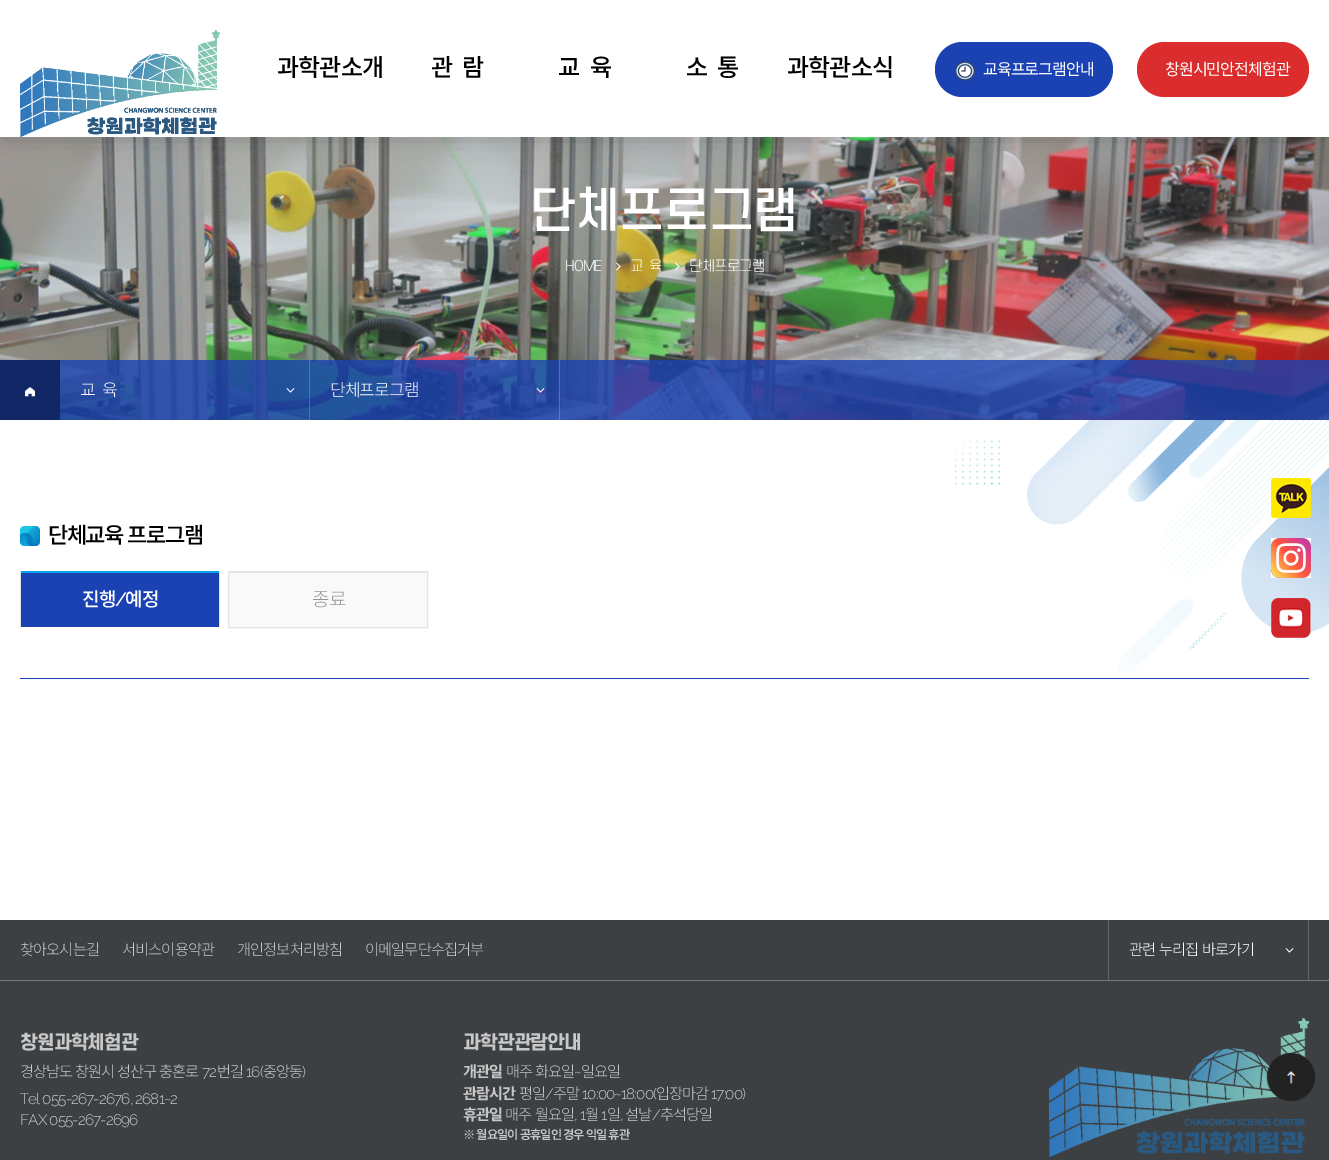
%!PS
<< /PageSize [1329 1160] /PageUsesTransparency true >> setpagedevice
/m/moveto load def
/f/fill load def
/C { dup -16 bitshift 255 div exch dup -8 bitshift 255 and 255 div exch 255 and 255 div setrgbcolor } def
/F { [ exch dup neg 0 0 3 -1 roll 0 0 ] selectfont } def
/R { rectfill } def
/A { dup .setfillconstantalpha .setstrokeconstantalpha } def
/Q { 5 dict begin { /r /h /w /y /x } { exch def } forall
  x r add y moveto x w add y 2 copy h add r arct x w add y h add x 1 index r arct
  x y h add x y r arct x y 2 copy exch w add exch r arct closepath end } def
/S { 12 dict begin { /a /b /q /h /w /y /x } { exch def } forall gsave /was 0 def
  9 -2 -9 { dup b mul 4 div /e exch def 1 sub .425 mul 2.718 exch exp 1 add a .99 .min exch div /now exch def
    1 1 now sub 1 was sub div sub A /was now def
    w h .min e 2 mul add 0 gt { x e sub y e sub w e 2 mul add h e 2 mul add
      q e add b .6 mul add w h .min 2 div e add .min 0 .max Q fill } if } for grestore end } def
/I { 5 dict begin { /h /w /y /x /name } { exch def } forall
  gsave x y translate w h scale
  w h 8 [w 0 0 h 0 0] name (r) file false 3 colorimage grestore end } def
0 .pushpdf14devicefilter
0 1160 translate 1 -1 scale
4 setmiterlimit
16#FFFFFF C
0 0 1329 1160 R
(3.rgb) 0 137 1329 283 I
16#000000 C
5 5 1319 127 0 15 .3 S
16#FFFFFF C
0 0 1329 137 R
(1.rgb) 20 30 200 107 I
/NotoSansKR-Medium 24 F
16#000000 C
277 76 m -.9 0 (과학관소개) ashow
431 76 m -.9 0 (관) ashow
462 76 m -.9 0 (람) ashow
558 76 m -.9 0 (교) ashow
590 76 m -.9 0 (육) ashow
686 76 m -.9 0 (소) ashow
717 76 m -.9 0 (통) ashow
787 76 m -.9 0 (과학관소식) ashow
16#1A42B2 C
935 42 178 55 27.5 Q f
(2.rgb) 955 61 20 20 I
/NotoSansKR-Regular 16 F
16#FFFFFF C
983 75 m -.9 0 (교육프로그램안내) ashow
16#DB2D2D C
1137 42 172 55 27.5 Q f
16#FFFFFF C
1165 75 m -.9 0 (창원시민안전체험관) ashow
/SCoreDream-Medium 47.5 F
530 228 m -.9 0 (단체프로그램) ashow
/SCoreDream-Light 14 F
565 271 m -.9 0 (HOME) ashow
(4.rgb) 616 262 5 9 I
630 271 m -.9 0 (교  육) ashow
(5.rgb) 675 262 5 9 I
689 271 m -.9 0 (단체프로그램) ashow
0.8 A
16#1A42B2 C
60 360 1269 60 R
1 A
16#112765 C
0 360 60 60 R
(6.rgb) 25 387 10 10 I
0.2 A
16#FFFFFF C
309 360 1 60 R
/NotoSansKR-Light 17 F
1 A
80 396 m -.9 0 (교) ashow
102 396 m -.9 0 (육) ashow
(7.rgb) 286 388 9 5 I
0.2 A
559 360 1 60 R
1 A
330 396 m -.9 0 (단체프로그램) ashow
(8.rgb) 536 388 9 5 I
(9.rgb) 954 420 375 254 I
(10.rgb) 20 526 20 20 I
/NotoSansKR-Medium 22 F
16#000000 C
48 543 m 1 0 32 -1.5 0 (단체교육 프로그램) awidthshow
16#1A42B2 C
21 573 198 54 R
16#E0E3E7 C
219 571 1 57 R
16#FFFFFF C
219 627 1 1 R
16#E0E3E7 C
20 571 1 57 R
16#0AA2F8 C
21 571 198 2 R
/NotoSansKR-Medium 19 F
16#FFFFFF C
82 606 m -.9 0 (진행) ashow
/Raleway-Medium 19 F
115 606 m -.9 0 (/) ashow
/NotoSansKR-Medium 19 F
125 606 m -.9 0 (예정) ashow
16#F9F9F9 C
229 573 198 54 R
16#E0E3E7 C
228.5 571.5 199 56 rectstroke
229 572 198 1 R
/NotoSansKR-Light 19 F
16#969696 C
312 606 m -.9 0 (종료) ashow
16#1A42B2 C
20 678 1289 1 R
(11.rgb) 1271 478 40 40 I
(12.rgb) 1271 538 40 40 I
(13.rgb) 1271 598 40 40 I
16#3D4043 C
0 920 1329 240 R
16#77797B C
0 980 1329 1 R
/NotoSansKR-Light 15.25 F
16#C8C8C8 C
20 955 m -.9 0 (찾아오시는길) ashow
122 955 m -.9 0 (서비스이용약관) ashow
237 955 m -.9 0 (개인정보처리방침) ashow
365 955 m -.9 0 (이메일무단수집거부) ashow
16#646669 C
1108 920 1 60 R
1308 920 1 60 R
16#FFFFFF C
1129 955 m 1 0 32 -.9 0 (관련 누리집 바로가기) awidthshow
(14.rgb) 1285 948 9 5 I
/SCoreDream-ExtraBold 18.5 F
16#C8C8C8 C
20 1049 m -.9 0 (창원과학체험관) ashow
/NotoSansKR-Light 15.25 F
20 1077 m -.9 0 (경상남도 창원시 성산구 충혼로) ashow
/Raleway-Light 15.25 F
202 1077 m -.9 0 (72) ashow
/NotoSansKR-Light 15.25 F
217 1077 m -.9 0 (번길) ashow
/Raleway-Light 15.25 F
246 1077 m -.9 0 (16\() ashow
/NotoSansKR-Light 15.25 F
263 1077 m -.9 0 (중앙동) ashow
/Raleway-Light 15.25 F
302 1077 m -.9 0 (\)) ashow
20 1104 m -.9 0 (Tel 055-267-2676, 2681~2) ashow
20 1125 m -.9 0 (FAX 055-267-2696) ashow
/SCoreDream-ExtraBold 18.5 F
463 1049 m -.9 0 (과학관관람안내) ashow
/NotoSansKR-Bold 15.25 F
463 1077 m -.9 0 (개관일) ashow
/NotoSansKR-Light 15.25 F
506 1077 m -.9 0 (매주 화요일) ashow
/Raleway-Light 15.25 F
574 1077 m -.9 0 (~) ashow
/NotoSansKR-Light 15.25 F
581 1077 m -.9 0 (일요일) ashow
/NotoSansKR-Bold 15.25 F
463 1099 m -.9 0 (관람시간) ashow
/NotoSansKR-Light 15.25 F
519 1099 m -.9 0 (평일) ashow
/Raleway-Light 15.25 F
545 1099 m -.9 0 (/) ashow
/NotoSansKR-Light 15.25 F
553 1099 m -.9 0 (주말) ashow
/Raleway-Light 15.25 F
582 1099 m -.9 0 (10:00~18:00\() ashow
/NotoSansKR-Light 15.25 F
656 1099 m -.9 0 (입장마감) ashow
/Raleway-Light 15.25 F
711 1099 m -.9 0 (17:00\)) ashow
/NotoSansKR-Bold 15.25 F
463 1120 m -.9 0 (휴관일) ashow
/NotoSansKR-Light 15.25 F
505 1120 m -.9 0 (매주) ashow
535 1120 m -.9 0 (월요일) ashow
/Raleway-Light 15.25 F
574 1120 m -.9 0 (, 1) ashow
/NotoSansKR-Light 15.25 F
585 1120 m -.9 0 (월) ashow
/Raleway-Light 15.25 F
601 1120 m -.9 0 (1) ashow
/NotoSansKR-Light 15.25 F
607 1120 m -.9 0 (일) ashow
/Raleway-Light 15.25 F
620 1120 m -.9 0 (,) ashow
/NotoSansKR-Light 15.25 F
625 1120 m -.9 0 (설날) ashow
/Raleway-Light 15.25 F
652 1120 m -.9 0 (/) ashow
/NotoSansKR-Light 15.25 F
660 1120 m -.9 0 (추석당일) ashow
/NotoSansKR-SemiBold 12.25 F
463 1139 m -.9 0 (※ 월요일이 공휴일인 경우 익일 휴관) ashow
(15.rgb) 1049 1018 260 139 I
(16.rgb) 1266 1052 50 50 I
.poppdf14devicefilter showpage
